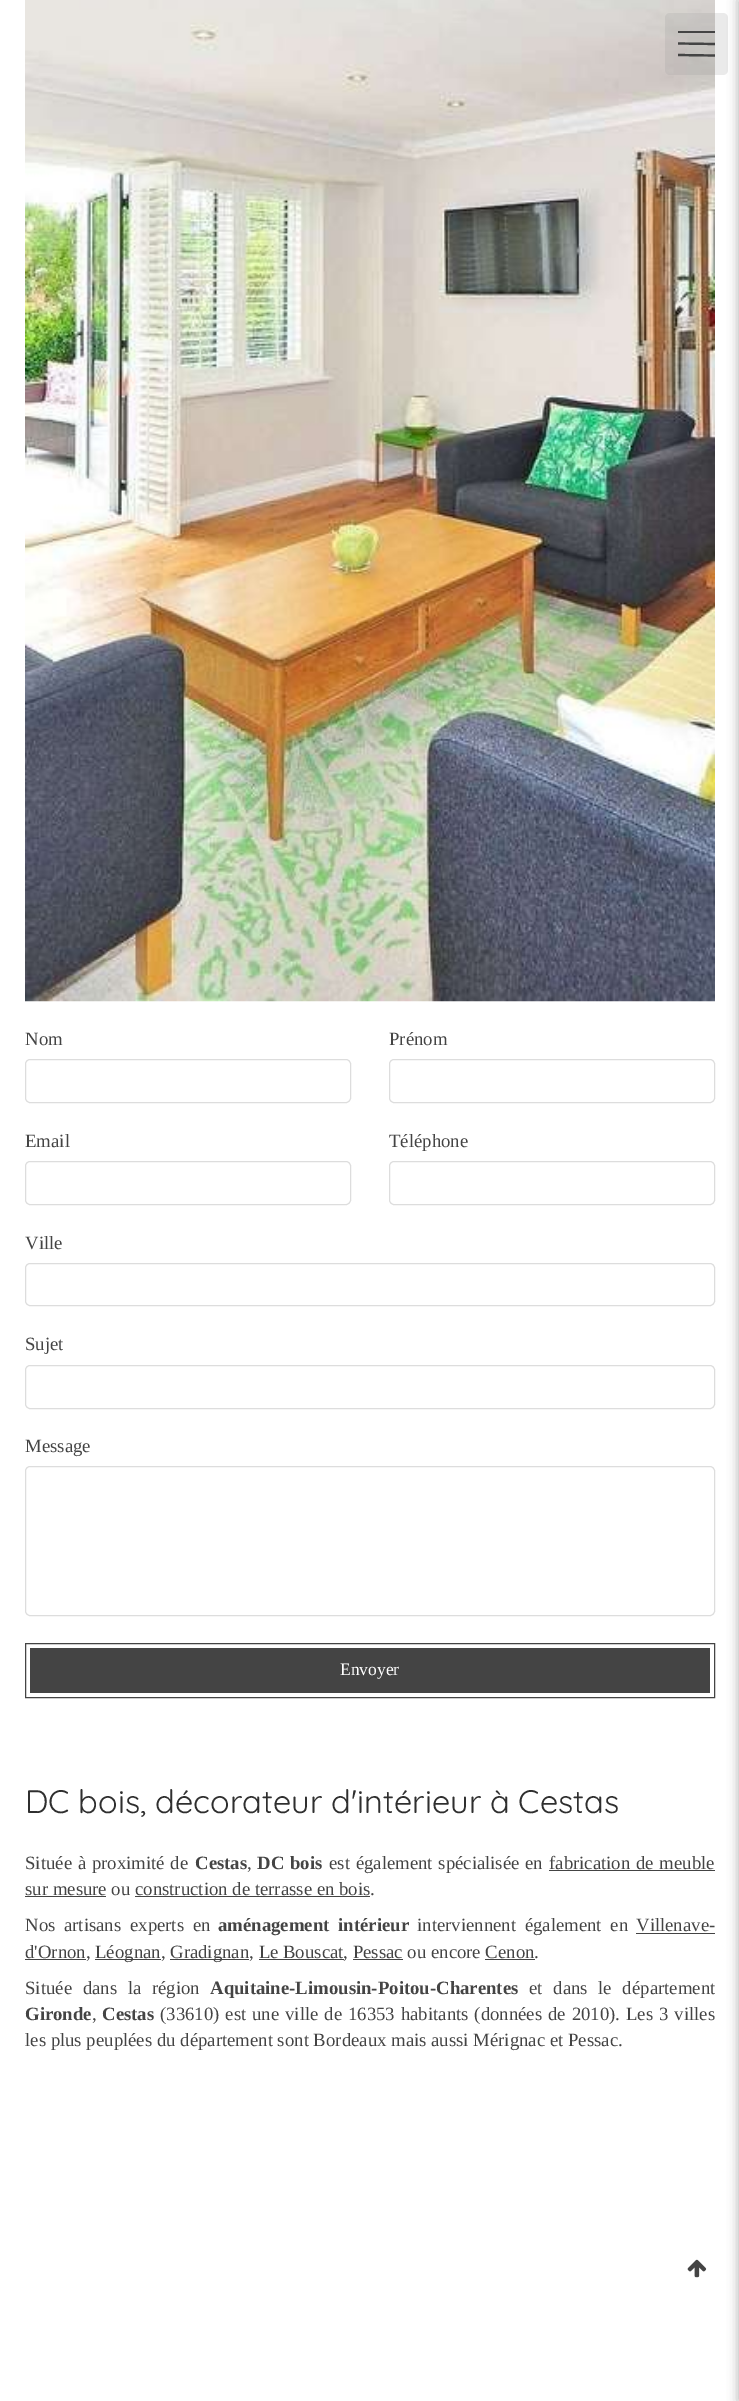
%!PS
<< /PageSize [739 2401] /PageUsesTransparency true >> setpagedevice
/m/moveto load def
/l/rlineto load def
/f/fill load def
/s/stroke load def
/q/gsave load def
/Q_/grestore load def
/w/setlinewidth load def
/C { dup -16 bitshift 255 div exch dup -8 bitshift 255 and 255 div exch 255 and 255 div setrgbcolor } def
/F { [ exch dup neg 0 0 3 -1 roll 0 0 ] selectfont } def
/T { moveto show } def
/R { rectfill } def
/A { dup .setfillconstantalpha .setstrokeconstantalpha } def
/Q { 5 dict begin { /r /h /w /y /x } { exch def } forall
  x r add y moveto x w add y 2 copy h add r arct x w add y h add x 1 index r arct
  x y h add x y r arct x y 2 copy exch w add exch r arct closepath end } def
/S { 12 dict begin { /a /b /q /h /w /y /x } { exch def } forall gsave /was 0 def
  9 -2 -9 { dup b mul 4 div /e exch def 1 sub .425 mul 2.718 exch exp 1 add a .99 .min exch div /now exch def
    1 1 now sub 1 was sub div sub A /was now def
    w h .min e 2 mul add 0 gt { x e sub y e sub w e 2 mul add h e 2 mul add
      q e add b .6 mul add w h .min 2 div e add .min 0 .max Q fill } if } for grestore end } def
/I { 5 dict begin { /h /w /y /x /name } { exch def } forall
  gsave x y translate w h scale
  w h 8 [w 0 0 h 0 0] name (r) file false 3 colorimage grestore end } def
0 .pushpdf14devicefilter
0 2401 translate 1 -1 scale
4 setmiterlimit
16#FFFFFF C
0 0 739 2401 R
(1.rgb) 25 0 690 1002 I
0.2 A
16#969696 C
665 13 63 62 5 Q f
1 A
16#444444 C
678 31 37 2 R
q
678 25 37 38 rectclip
2.2 w
677.5 43.5 m 37.5 .5 l s
677.5 55 m 37.5 .5 l s
Q_
/LiberationSerif-Regular 18.75 F
(Nom) 25 1045 T
16#DDDDDD C
25.5 1059.5 325 43 4.5 Q s
16#444444 C
(Prénom) 389 1045 T
16#DDDDDD C
389.5 1059.5 325 43 4.5 Q s
16#444444 C
(Email) 25 1147 T
16#DDDDDD C
25.5 1161.5 325 43 4.5 Q s
16#444444 C
(Téléphone) 389 1147 T
16#DDDDDD C
389.5 1161.5 325 43 4.5 Q s
16#444444 C
(Ville) 25 1249 T
16#DDDDDD C
25.5 1263.5 689 42 4.5 Q s
16#444444 C
(Sujet) 25 1350 T
16#DDDDDD C
25.5 1365.5 689 43 4.5 Q s
16#444444 C
(Message) 25 1452 T
16#DDDDDD C
25.5 1466.5 689 149 4.5 Q s
16#444444 C
25.5 1643.5 689 54 rectstroke
30 1648 680 45 R
/LiberationSerif-Regular 17.5 F
16#FFFFFF C
(Envoyer) 340 1675 T
/Quicksand-Regular 32.5 F
16#2F2F2F C
(DC bois, décorateur d'intérieur à Cestas) 25 1813 T
/LiberationSerif-Regular 18.75 F
16#444444 C
25 1869 m 1 0 32 (Située à proximité de) widthshow
/LiberationSerif-Bold 18.75 F
(Cestas) 195 1869 T
/LiberationSerif-Regular 18.75 F
(,) 247 1869 T
/LiberationSerif-Bold 18.75 F
257 1869 m 1 0 32 (DC bois) widthshow
/LiberationSerif-Regular 18.75 F
329 1869 m 1 0 32 (est également spécialisée en) widthshow
549 1869 m 1 0 32 (fabrication de meuble) widthshow
549 1870 166 1 R
(sur mesure ou construction de terrasse en bois.) 25 1895 T
25 1896 81 1 R
135 1896 235 1 R
25 1931 m 4 0 32 (Nos artisans experts en) widthshow
/LiberationSerif-Bold 18.75 F
218 1931 m 4 0 32 (aménagement intérieur) widthshow
/LiberationSerif-Regular 18.75 F
417 1931 m 4 0 32 (interviennent également en) widthshow
(Villenave-) 636 1931 T
636 1933 79 1 R
25 1959 61 1 R
(d'Ornon,) 25 1958 T
95 1959 66 1 R
(Léognan,) 95 1958 T
170 1959 79 1 R
(Gradignan, Le Bouscat, Pessac ou encore Cenon.) 170 1958 T
259 1959 85 1 R
353 1959 50 1 R
485 1959 50 1 R
25 1994 m 6 0 32 (Située dans la région) widthshow
/LiberationSerif-Bold 18.75 F
(Aquitaine-Limousin-Poitou-Charentes) 210 1994 T
/LiberationSerif-Regular 18.75 F
529 1994 m 6 0 32 (et dans le département) widthshow
/LiberationSerif-Bold 18.75 F
(Gironde) 25 2020 T
/LiberationSerif-Regular 18.75 F
(,) 92 2020 T
/LiberationSerif-Bold 18.75 F
(Cestas) 102 2020 T
/LiberationSerif-Regular 18.75 F
160 2020 m 1.25 0 32 (\(33610\) est une ville de 16353 habitants \(données de 2010\). Les 3 villes) widthshow
(les plus peuplées du département sont Bordeaux mais aussi Mérignac et Pessac.) 25 2046 T
16#000000 C
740 0 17 2401 0 6 .4 S
(2.rgb) 687 2259 20 19 I
.poppdf14devicefilter showpage
